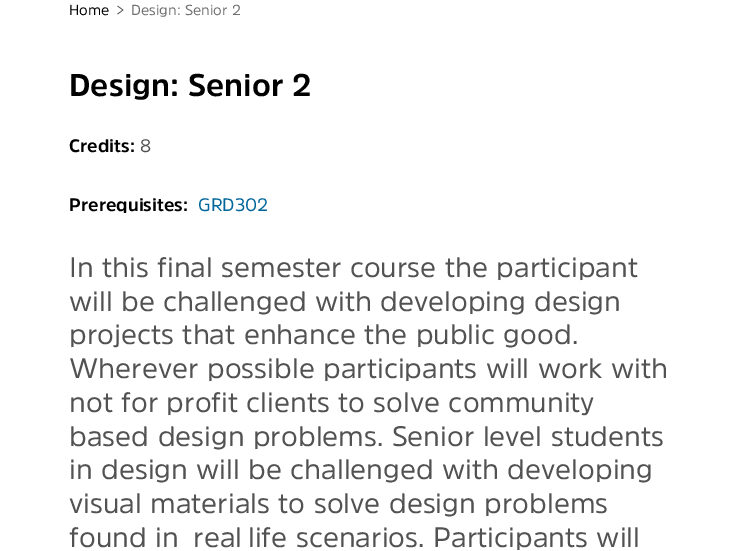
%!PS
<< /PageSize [745 551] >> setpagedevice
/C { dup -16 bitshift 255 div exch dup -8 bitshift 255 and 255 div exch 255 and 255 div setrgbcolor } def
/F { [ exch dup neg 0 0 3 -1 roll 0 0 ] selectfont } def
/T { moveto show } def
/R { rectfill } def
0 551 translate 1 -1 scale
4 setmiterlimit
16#FFFFFF C
0 0 745 551 R
/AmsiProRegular-Regular 14.5 F
16#000000 C
(Home) 69 15 T
16#525252 C
(>) 116 15 T
16#707070 C
(Design: Senior 2) 131 15 T
/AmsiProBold-Bold 31.25 F
16#000000 C
(Design: Senior 2) 69 96 T
/AmsiProBold-Bold 18 F
(Credits:) 69 152 T
/AmsiProRegular-Regular 18 F
16#525252 C
(8) 140 152 T
/AmsiProBold-Bold 18 F
16#000000 C
(Prerequisites:) 69 211 T
/AmsiProRegular-Regular 18 F
16#00659B C
(GRD302) 198 211 T
/AmsiProRegular-Regular 28.1 F
16#525252 C
(In this final semester course the participant) 69 277 T
(will be challenged with developing design) 69 311 T
(projects that enhance the public good.) 69 344 T
(Wherever possible participants will work with) 69 378 T
(not for profit clients to solve community) 69 412 T
(based design problems. Senior level students) 69 446 T
(in design will be challenged with developing) 69 479 T
(visual materials to solve design problems) 69 513 T
(found in) 69 547 T
(real) 193 547 T
(life scenarios. Participants will) 248 547 T
showpage
